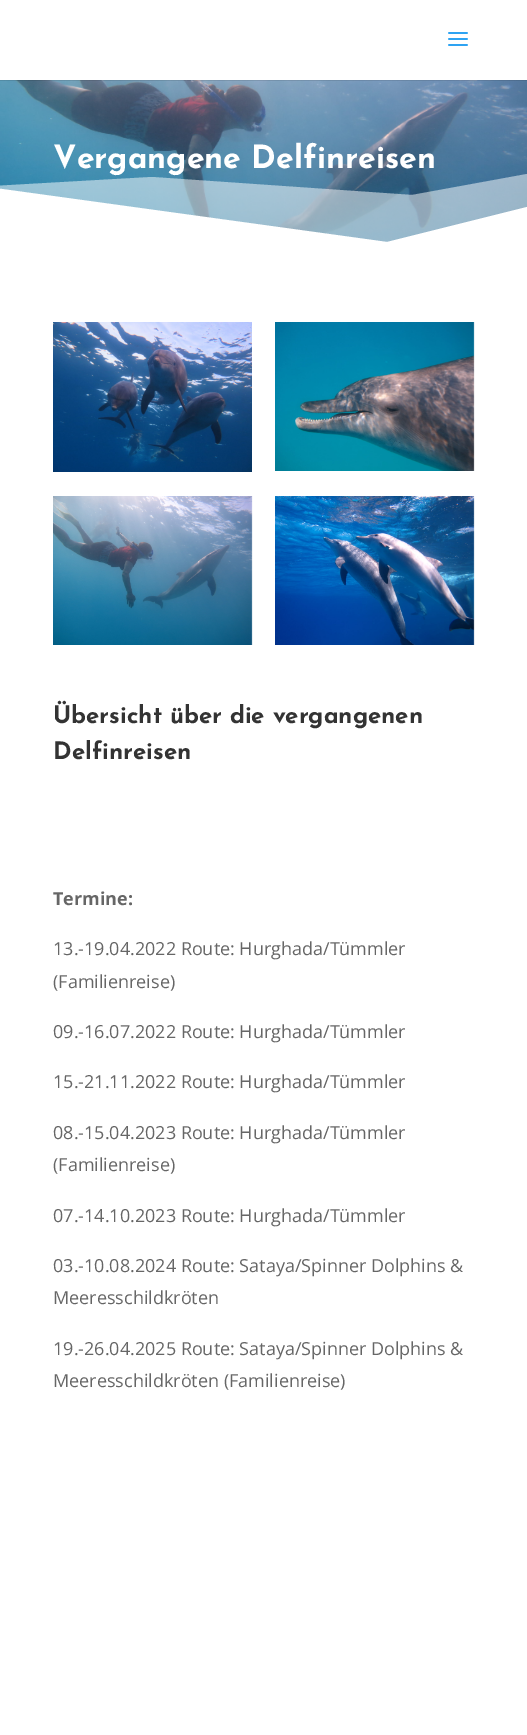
%!PS
<< /PageSize [527 1735] /PageUsesTransparency true >> setpagedevice
/m/moveto load def
/l/rlineto load def
/z/closepath load def
/f/fill load def
/C { dup -16 bitshift 255 div exch dup -8 bitshift 255 and 255 div exch 255 and 255 div setrgbcolor } def
/F { [ exch dup neg 0 0 3 -1 roll 0 0 ] selectfont } def
/T { moveto show } def
/R { rectfill } def
/A { dup .setfillconstantalpha .setstrokeconstantalpha } def
/I { 5 dict begin { /h /w /y /x /name } { exch def } forall
  gsave x y translate w h scale
  w h 8 [w 0 0 h 0 0] name (r) file false 3 colorimage grestore end } def
0 .pushpdf14devicefilter
0 1735 translate 1 -1 scale
4 setmiterlimit
16#FFFFFF C
0 0 527 1735 R
(2.rgb) 0 80 527 162 I
0.1 A
16#000000 C
0 80 527 1 R
1 A
(1.rgb) 448 32 20 14 I
0.5 A
16#FFFFFF C
527 174 m -115 21 l -260 -18 l -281 16 l -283 -30 l -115 11 l 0 68 l 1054 0 l z f
/JosefinSans-Bold 32 F
1 A
(Vergangene Delfinreisen) 53 168 T
527 242 m 0 -35 l -140 35 l -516 -71 l -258 6 l -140 30 l 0 35 l z f
(3.rgb) 53 322 199 150 I
(4.rgb) 53 496 200 149 I
(5.rgb) 275 322 200 149 I
(6.rgb) 275 496 200 149 I
/JosefinSans-Bold 24 F
16#333333 C
(Übersicht über die vergangenen) 53 723 T
(Delfinreisen) 53 759 T
/OpenSans-Bold 18 F
16#666666 C
(Termine:) 53 905 T
/OpenSans-Regular 18 F
(13.-19.04.2022 Route: Hurghada/Tümmler) 53 955 T
(\(Familienreise\)) 53 988 T
(09.-16.07.2022 Route: Hurghada/Tümmler) 53 1038 T
(15.-21.11.2022 Route: Hurghada/Tümmler) 53 1088 T
(08.-15.04.2023 Route: Hurghada/Tümmler) 53 1139 T
(\(Familienreise\)) 53 1171 T
(07.-14.10.2023 Route: Hurghada/Tümmler) 53 1222 T
(03.-10.08.2024 Route: Sataya/Spinner Dolphins &) 53 1272 T
(Meeresschildkröten) 53 1304 T
(19.-26.04.2025 Route: Sataya/Spinner Dolphins &) 53 1355 T
(Meeresschildkröten \(Familienreise\)) 53 1387 T
.poppdf14devicefilter showpage
